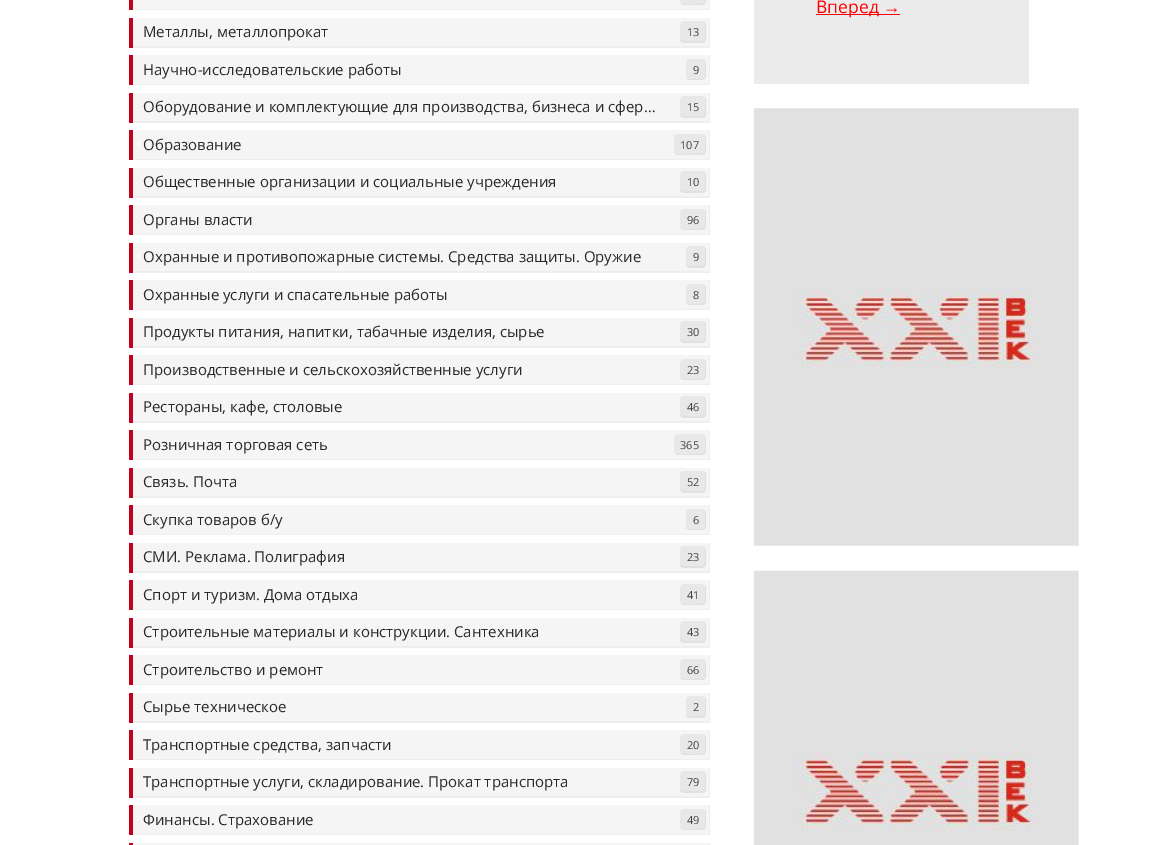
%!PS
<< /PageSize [1156 845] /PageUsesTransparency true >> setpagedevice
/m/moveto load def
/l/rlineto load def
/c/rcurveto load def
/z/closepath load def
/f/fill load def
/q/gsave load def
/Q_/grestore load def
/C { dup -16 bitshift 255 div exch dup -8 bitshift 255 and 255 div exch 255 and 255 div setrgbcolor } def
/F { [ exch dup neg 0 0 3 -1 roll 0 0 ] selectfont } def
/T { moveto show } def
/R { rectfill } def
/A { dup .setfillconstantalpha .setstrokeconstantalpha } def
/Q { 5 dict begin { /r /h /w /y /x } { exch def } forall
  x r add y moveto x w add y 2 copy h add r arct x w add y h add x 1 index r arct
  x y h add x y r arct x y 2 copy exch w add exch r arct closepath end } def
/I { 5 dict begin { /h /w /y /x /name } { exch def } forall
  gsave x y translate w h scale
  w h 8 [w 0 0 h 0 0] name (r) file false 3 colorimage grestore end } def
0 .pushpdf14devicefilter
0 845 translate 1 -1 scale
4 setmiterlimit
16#FFFFFF C
0 0 1156 845 R
16#EBEBEB C
754 0 275 84 R
16#FF0000 C
816 14 84 1 R
/OpenSans-Regular 17.5 F
(Вперед) 816 13 T
/LiberationSans-Regular 17.5 F
(→) 883 13 T
(1.rgb) 753 108 326 438 I
(2.rgb) 753 570 326 275 I
16#F5F5F5 C
133 0 576 9 R
q
133 0 577 10 rectclip
16#EEEEEE C
9 -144 m 825 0 l 0 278 l -825 0 l z 131 -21 m 578 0 l 0 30 l -578 0 l z eofill
Q_
16#C3001F C
129 0 4 10 R
16#E8E8E8 C
680 -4 26 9 4 Q f
0.03 A
16#000000 C
680.5 3 m .5 1 2 2 3.5 2 c 18 0 l 2 0 4 -2 4 -4 c 0 -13 l 0 -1 -.5 -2 -1 -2.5 c .5 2 0 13.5 -.5 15 c 0 1.5 -.5 2.5 -2 3 c -2 1 -9 .5 -11.5 .5 c -3 0 -7.5 .5 -10.5 -1 c z f
1 A
16#F5F5F5 C
133 18 576 28 R
q
133 18 577 30 rectclip
16#EEEEEE C
9 -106 m 825 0 l 0 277 l -825 0 l z 131 16 m 578 0 l 0 30 l -578 0 l z eofill
Q_
16#C3001F C
129 18 4 30 R
/OpenSans-Regular 15 F
16#282828 C
(Металлы, металлопрокат) 143 37 T
16#E8E8E8 C
680 21 26 22 4 Q f
0.03 A
16#000000 C
680 39.5 m .5 3.5 4 3.5 7 3.5 c 9 0 l 11 0 10 0 10 -11 c 0 -2.5 1 -8 -1.5 -10 c 1 1.5 .5 12.5 .5 14.5 c 0 1.5 -.5 2.5 -1.5 3.5 c -1 1 l -9 0 l -3 0 -10.5 1 -13.5 -1.5 c z f
/OpenSans-Regular 11 F
1 A
16#414141 C
(13) 687 36 T
16#F5F5F5 C
133 55 576 29 R
q
133 55 577 30 rectclip
16#EEEEEE C
9 -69 m 825 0 l 0 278 l -825 0 l z 131 54 m 578 0 l 0 30 l -578 0 l z eofill
Q_
16#C3001F C
129 55 4 30 R
/OpenSans-Regular 15 F
16#282828 C
(Научно-исследовательские работы) 143 75 T
16#E8E8E8 C
686 59 20 21 4 Q f
0.03 A
16#000000 C
686.5 78 m 1 1 2 2 3.5 2 c 12 0 l 2 0 4 -2 4 -4 c 0 -13 l 0 -1 -.5 -2 -1 -2.5 c 0 15 l -1 2 l -2 2 -6 1.5 -8.5 1.5 c -2 0 -7 1 -9 -1 c z f
/OpenSans-Regular 11 F
1 A
16#414141 C
(9) 693 74 T
16#F5F5F5 C
133 93 576 28 R
q
133 93 577 30 rectclip
16#EEEEEE C
9 -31 m 825 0 l 0 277 l -825 0 l z 131 91 m 578 0 l 0 30 l -578 0 l z eofill
Q_
16#C3001F C
129 93 4 30 R
/OpenSans-Regular 15 F
16#282828 C
(Оборудование и комплектующие для производства, бизнеса и сфер…) 143 112 T
16#E8E8E8 C
680 96 26 22 4 Q f
0.03 A
16#000000 C
680 114.5 m .5 3.5 4 3.5 7 3.5 c 9 0 l 11 0 10 0 10 -11 c 0 -2.5 1 -8 -1.5 -10 c 1 1.5 .5 12.5 .5 14.5 c 0 1.5 -.5 2.5 -1.5 3.5 c -1 1 l -9 0 l -3 0 -10.5 1 -13.5 -1.5 c z f
/OpenSans-Regular 11 F
1 A
16#414141 C
(15) 687 111 T
16#F5F5F5 C
133 130 576 29 R
q
133 130 577 30 rectclip
16#EEEEEE C
9 6 m 825 0 l 0 278 l -825 0 l z 131 129 m 578 0 l 0 30 l -578 0 l z eofill
Q_
16#C3001F C
129 130 4 30 R
/OpenSans-Regular 15 F
16#282828 C
(Образование) 143 150 T
16#E8E8E8 C
674 134 32 21 4 Q f
0.03 A
16#000000 C
675 153.5 m 1 1 2 1.5 3 1.5 c 24 0 l 2 0 4 -2 4 -4 c 0 -13 l 0 -1 -.5 -1.5 -.5 -2.5 c -.5 14.5 l 0 .5 -.5 2 -1 2.5 c -.5 .5 -1.5 1 -2.5 1 c -12.5 .5 l -4.5 0 -10 1 -14 -.5 c z f
/OpenSans-Regular 11 F
1 A
16#414141 C
(107) 680 149 T
16#F5F5F5 C
133 168 576 28 R
q
133 168 577 30 rectclip
16#EEEEEE C
9 44 m 825 0 l 0 277 l -825 0 l z 131 166 m 578 0 l 0 30 l -578 0 l z eofill
Q_
16#C3001F C
129 168 4 30 R
/OpenSans-Regular 15 F
16#282828 C
(Общественные организации и социальные учреждения) 143 187 T
16#E8E8E8 C
680 171 26 22 4 Q f
0.03 A
16#000000 C
680 189.5 m .5 3.5 4 3.5 7 3.5 c 9 0 l 11 0 10 0 10 -11 c 0 -2.5 1 -8 -1.5 -10 c 1 1.5 .5 12.5 .5 14.5 c 0 1.5 -.5 2.5 -1.5 3.5 c -1 1 l -9 0 l -3 0 -10.5 1 -13.5 -1.5 c z f
/OpenSans-Regular 11 F
1 A
16#414141 C
(10) 687 186 T
16#F5F5F5 C
133 205 576 29 R
q
133 205 577 30 rectclip
16#EEEEEE C
9 81 m 825 0 l 0 278 l -825 0 l z 131 204 m 578 0 l 0 30 l -578 0 l z eofill
Q_
16#C3001F C
129 205 4 30 R
/OpenSans-Regular 15 F
16#282828 C
(Органы власти) 143 225 T
16#E8E8E8 C
680 209 26 21 4 Q f
0.03 A
16#000000 C
680.5 228 m .5 1 2 2 3.5 2 c 18 0 l 2 0 4 -2 4 -4 c 0 -13 l 0 -1 -.5 -2 -1 -3 c .5 1.5 0 12.5 0 14 c 0 1.5 -.5 3 -1.5 4 c -1 1 -1.5 1 -2.5 1 c -7.5 0 l -3.5 0 -9.5 1 -13 -1 c z f
/OpenSans-Regular 11 F
1 A
16#414141 C
(96) 687 224 T
16#F5F5F5 C
133 243 576 28 R
q
133 243 577 30 rectclip
16#EEEEEE C
9 119 m 825 0 l 0 277 l -825 0 l z 131 241 m 578 0 l 0 30 l -578 0 l z eofill
Q_
16#C3001F C
129 243 4 30 R
/OpenSans-Regular 15 F
16#282828 C
(Охранные и противопожарные системы. Средства защиты. Оружие) 143 262 T
16#E8E8E8 C
686 246 20 22 4 Q f
0.03 A
16#000000 C
686 264.5 m .5 2 2 3.5 4 3.5 c 12 0 l 2 0 4 -2 4 -4 c 0 -14 l 0 -1 -.5 -2.5 -1.5 -3 c .5 1 l 0 15 l -1 2 l -3 1 l -13 0 l -1 -.5 -1.5 -.5 -2 -1.5 c z f
/OpenSans-Regular 11 F
1 A
16#414141 C
(9) 693 261 T
16#F5F5F5 C
133 280 576 29 R
q
133 280 577 30 rectclip
16#EEEEEE C
9 156 m 825 0 l 0 278 l -825 0 l z 131 279 m 578 0 l 0 30 l -578 0 l z eofill
Q_
16#C3001F C
129 280 4 30 R
/OpenSans-Regular 15 F
16#282828 C
(Охранные услуги и спасательные работы) 143 300 T
16#E8E8E8 C
686 284 20 21 4 Q f
0.03 A
16#000000 C
686.5 303 m 1 1 2 2 3.5 2 c 12 0 l 2 0 4 -2 4 -4 c 0 -13 l 0 -1 -.5 -2 -1 -2.5 c 0 15 l -1 2 l -2 2 -6 1.5 -8.5 1.5 c -2 0 -7 1 -9 -1 c z f
/OpenSans-Regular 11 F
1 A
16#414141 C
(8) 693 299 T
16#F5F5F5 C
133 318 576 28 R
q
133 318 577 30 rectclip
16#EEEEEE C
9 194 m 825 0 l 0 277 l -825 0 l z 131 316 m 578 0 l 0 30 l -578 0 l z eofill
Q_
16#C3001F C
129 318 4 30 R
/OpenSans-Regular 15 F
16#282828 C
(Продукты питания, напитки, табачные изделия, сырье) 143 337 T
16#E8E8E8 C
680 321 26 22 4 Q f
0.03 A
16#000000 C
680 339.5 m .5 3.5 4 3.5 7 3.5 c 9 0 l 11 0 10 0 10 -11 c 0 -2.5 1 -8 -1.5 -10 c 1 1.5 .5 12.5 .5 14.5 c 0 1.5 -.5 2.5 -1.5 3.5 c -1 1 l -9 0 l -3 0 -10.5 1 -13.5 -1.5 c z f
/OpenSans-Regular 11 F
1 A
16#414141 C
(30) 687 336 T
16#F5F5F5 C
133 355 576 29 R
q
133 355 577 30 rectclip
16#EEEEEE C
9 231 m 825 0 l 0 278 l -825 0 l z 131 354 m 578 0 l 0 30 l -578 0 l z eofill
Q_
16#C3001F C
129 355 4 30 R
/OpenSans-Regular 15 F
16#282828 C
(Производственные и сельскохозяйственные услуги) 143 375 T
16#E8E8E8 C
680 359 26 21 4 Q f
0.03 A
16#000000 C
680.5 378 m .5 1 2 2 3.5 2 c 18 0 l 2 0 4 -2 4 -4 c 0 -13 l 0 -1 -.5 -2 -1 -3 c .5 1.5 0 12.5 0 14 c 0 1.5 -.5 3 -1.5 4 c -1 1 -1.5 1 -2.5 1 c -7.5 0 l -3.5 0 -9.5 1 -13 -1 c z f
/OpenSans-Regular 11 F
1 A
16#414141 C
(23) 687 374 T
16#F5F5F5 C
133 393 576 28 R
q
133 393 577 30 rectclip
16#EEEEEE C
9 269 m 825 0 l 0 277 l -825 0 l z 131 391 m 578 0 l 0 30 l -578 0 l z eofill
Q_
16#C3001F C
129 393 4 30 R
/OpenSans-Regular 15 F
16#282828 C
(Рестораны, кафе, столовые) 143 412 T
16#E8E8E8 C
680 396 26 22 4 Q f
0.03 A
16#000000 C
680 414.5 m .5 3.5 4 3.5 7 3.5 c 9 0 l 11 0 10 0 10 -11 c 0 -2.5 1 -8 -1.5 -10 c 1 1.5 .5 12.5 .5 14.5 c 0 1.5 -.5 2.5 -1.5 3.5 c -1 1 l -9 0 l -3 0 -10.5 1 -13.5 -1.5 c z f
/OpenSans-Regular 11 F
1 A
16#414141 C
(46) 687 411 T
16#F5F5F5 C
133 430 576 29 R
q
133 430 577 30 rectclip
16#EEEEEE C
9 306 m 825 0 l 0 278 l -825 0 l z 131 429 m 578 0 l 0 30 l -578 0 l z eofill
Q_
16#C3001F C
129 430 4 30 R
/OpenSans-Regular 15 F
16#282828 C
(Розничная торговая сеть) 143 450 T
16#E8E8E8 C
674 434 32 21 4 Q f
0.03 A
16#000000 C
675 453.5 m 1 1 2 1.5 3 1.5 c 24 0 l 2 0 4 -2 4 -4 c 0 -13 l 0 -1 -.5 -1.5 -.5 -2.5 c -.5 14.5 l 0 .5 -.5 2 -1 2.5 c -.5 .5 -1.5 1 -2.5 1 c -12.5 .5 l -4.5 0 -10 1 -14 -.5 c z f
/OpenSans-Regular 11 F
1 A
16#414141 C
(365) 680 449 T
16#F5F5F5 C
133 468 576 28 R
q
133 468 577 30 rectclip
16#EEEEEE C
9 344 m 825 0 l 0 277 l -825 0 l z 131 466 m 578 0 l 0 30 l -578 0 l z eofill
Q_
16#C3001F C
129 468 4 30 R
/OpenSans-Regular 15 F
16#282828 C
(Связь. Почта) 143 487 T
16#E8E8E8 C
680 471 26 22 4 Q f
0.03 A
16#000000 C
680 489.5 m .5 3.5 4 3.5 7 3.5 c 9 0 l 11 0 10 0 10 -11 c 0 -2.5 1 -8 -1.5 -10 c 1 1.5 .5 12.5 .5 14.5 c 0 1.5 -.5 2.5 -1.5 3.5 c -1 1 l -9 0 l -3 0 -10.5 1 -13.5 -1.5 c z f
/OpenSans-Regular 11 F
1 A
16#414141 C
(52) 687 486 T
16#F5F5F5 C
133 505 576 29 R
q
133 505 577 30 rectclip
16#EEEEEE C
9 381 m 825 0 l 0 278 l -825 0 l z 131 504 m 578 0 l 0 30 l -578 0 l z eofill
Q_
16#C3001F C
129 505 4 30 R
/OpenSans-Regular 15 F
16#282828 C
(Скупка товаров б/у) 143 525 T
16#E8E8E8 C
686 509 20 21 4 Q f
0.03 A
16#000000 C
686.5 528 m 1 1 2 2 3.5 2 c 12 0 l 2 0 4 -2 4 -4 c 0 -13 l 0 -1 -.5 -2 -1 -2.5 c 0 15 l -1 2 l -2 2 -6 1.5 -8.5 1.5 c -2 0 -7 1 -9 -1 c z f
/OpenSans-Regular 11 F
1 A
16#414141 C
(6) 693 524 T
16#F5F5F5 C
133 543 576 28 R
q
133 543 577 30 rectclip
16#EEEEEE C
9 419 m 825 0 l 0 277 l -825 0 l z 131 541 m 578 0 l 0 30 l -578 0 l z eofill
Q_
16#C3001F C
129 543 4 30 R
/OpenSans-Regular 15 F
16#282828 C
(СМИ. Реклама. Полиграфия) 143 562 T
16#E8E8E8 C
680 546 26 22 4 Q f
0.03 A
16#000000 C
680 564.5 m .5 3.5 4 3.5 7 3.5 c 9 0 l 11 0 10 0 10 -11 c 0 -2.5 1 -8 -1.5 -10 c 1 1.5 .5 12.5 .5 14.5 c 0 1.5 -.5 2.5 -1.5 3.5 c -1 1 l -9 0 l -3 0 -10.5 1 -13.5 -1.5 c z f
/OpenSans-Regular 11 F
1 A
16#414141 C
(23) 687 561 T
16#F5F5F5 C
133 580 576 29 R
q
133 580 577 30 rectclip
16#EEEEEE C
9 456 m 825 0 l 0 278 l -825 0 l z 131 579 m 578 0 l 0 30 l -578 0 l z eofill
Q_
16#C3001F C
129 580 4 30 R
/OpenSans-Regular 15 F
16#282828 C
(Спорт и туризм. Дома отдыха) 143 600 T
16#E8E8E8 C
680 584 26 21 4 Q f
0.03 A
16#000000 C
680.5 603 m .5 1 2 2 3.5 2 c 18 0 l 2 0 4 -2 4 -4 c 0 -13 l 0 -1 -.5 -2 -1 -2.5 c .5 2 0 13.5 -.5 15 c 0 1.5 -.5 2.5 -2 3 c -2 1 -9 .5 -11.5 .5 c -3 0 -7.5 .5 -10.5 -1 c z f
/OpenSans-Regular 11 F
1 A
16#414141 C
(41) 687 599 T
16#F5F5F5 C
133 618 576 28 R
q
133 618 577 30 rectclip
16#EEEEEE C
9 494 m 825 0 l 0 277 l -825 0 l z 131 616 m 578 0 l 0 30 l -578 0 l z eofill
Q_
16#C3001F C
129 618 4 30 R
/OpenSans-Regular 15 F
16#282828 C
(Строительные материалы и конструкции. Сантехника) 143 637 T
16#E8E8E8 C
680 621 26 22 4 Q f
0.03 A
16#000000 C
680 639.5 m .5 3.5 4 3.5 7 3.5 c 9 0 l 11 0 10 0 10 -11 c 0 -2.5 1 -8 -1.5 -10 c 1 1.5 .5 12.5 .5 14.5 c 0 1.5 -.5 2.5 -1.5 3.5 c -1 1 l -9 0 l -3 0 -10.5 1 -13.5 -1.5 c z f
/OpenSans-Regular 11 F
1 A
16#414141 C
(43) 687 636 T
16#F5F5F5 C
133 655 576 29 R
q
133 655 577 30 rectclip
16#EEEEEE C
9 531 m 825 0 l 0 278 l -825 0 l z 131 654 m 578 0 l 0 30 l -578 0 l z eofill
Q_
16#C3001F C
129 655 4 30 R
/OpenSans-Regular 15 F
16#282828 C
(Строительство и ремонт) 143 675 T
16#E8E8E8 C
680 659 26 21 4 Q f
0.03 A
16#000000 C
680.5 678 m .5 1 2 2 3.5 2 c 18 0 l 2 0 4 -2 4 -4 c 0 -13 l 0 -1 -.5 -2 -1 -3 c .5 1.5 0 12.5 0 14 c 0 1.5 -.5 3 -1.5 4 c -1 1 -1.5 1 -2.5 1 c -7.5 0 l -3.5 0 -9.5 1 -13 -1 c z f
/OpenSans-Regular 11 F
1 A
16#414141 C
(66) 687 674 T
16#F5F5F5 C
133 693 576 28 R
q
133 693 577 30 rectclip
16#EEEEEE C
9 569 m 825 0 l 0 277 l -825 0 l z 131 691 m 578 0 l 0 30 l -578 0 l z eofill
Q_
16#C3001F C
129 693 4 30 R
/OpenSans-Regular 15 F
16#282828 C
(Сырье техническое) 143 712 T
16#E8E8E8 C
686 696 20 22 4 Q f
0.03 A
16#000000 C
686 714.5 m .5 2 2 3.5 4 3.5 c 12 0 l 2 0 4 -2 4 -4 c 0 -14 l 0 -1 -.5 -2.5 -1.5 -3 c .5 1 l 0 15 l -1 2 l -3 1 l -13 0 l -1 -.5 -1.5 -.5 -2 -1.5 c z f
/OpenSans-Regular 11 F
1 A
16#414141 C
(2) 693 711 T
16#F5F5F5 C
133 730 576 29 R
q
133 730 577 30 rectclip
16#EEEEEE C
9 606 m 825 0 l 0 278 l -825 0 l z 131 729 m 578 0 l 0 30 l -578 0 l z eofill
Q_
16#C3001F C
129 730 4 30 R
/OpenSans-Regular 15 F
16#282828 C
(Транспортные средства, запчасти) 143 750 T
16#E8E8E8 C
680 734 26 21 4 Q f
0.03 A
16#000000 C
680.5 753 m .5 1 2 2 3.5 2 c 18 0 l 2 0 4 -2 4 -4 c 0 -13 l 0 -1 -.5 -2 -1 -2.5 c .5 2 0 13.5 -.5 15 c 0 1.5 -.5 2.5 -2 3 c -2 1 -9 .5 -11.5 .5 c -3 0 -7.5 .5 -10.5 -1 c z f
/OpenSans-Regular 11 F
1 A
16#414141 C
(20) 687 749 T
16#F5F5F5 C
133 768 576 28 R
q
133 768 577 30 rectclip
16#EEEEEE C
9 644 m 825 0 l 0 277 l -825 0 l z 131 766 m 578 0 l 0 30 l -578 0 l z eofill
Q_
16#C3001F C
129 768 4 30 R
/OpenSans-Regular 15 F
16#282828 C
(Транспортные услуги, складирование. Прокат транспорта) 143 787 T
16#E8E8E8 C
680 771 26 22 4 Q f
0.03 A
16#000000 C
680 789.5 m .5 3.5 4 3.5 7 3.5 c 9 0 l 11 0 10 0 10 -11 c 0 -2.5 1 -8 -1.5 -10 c 1 1.5 .5 12.5 .5 14.5 c 0 1.5 -.5 2.5 -1.5 3.5 c -1 1 l -9 0 l -3 0 -10.5 1 -13.5 -1.5 c z f
/OpenSans-Regular 11 F
1 A
16#414141 C
(79) 687 786 T
16#F5F5F5 C
133 805 576 29 R
q
133 805 577 30 rectclip
16#EEEEEE C
9 681 m 825 0 l 0 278 l -825 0 l z 131 804 m 578 0 l 0 30 l -578 0 l z eofill
Q_
16#C3001F C
129 805 4 30 R
/OpenSans-Regular 15 F
16#282828 C
(Финансы. Страхование) 143 825 T
16#E8E8E8 C
680 809 26 21 4 Q f
0.03 A
16#000000 C
680.5 828 m .5 1 2 2 3.5 2 c 18 0 l 2 0 4 -2 4 -4 c 0 -13 l 0 -1 -.5 -2 -1 -3 c .5 1.5 0 12.5 0 14 c 0 1.5 -.5 3 -1.5 4 c -1 1 -1.5 1 -2.5 1 c -7.5 0 l -3.5 0 -9.5 1 -13 -1 c z f
/OpenSans-Regular 11 F
1 A
16#414141 C
(49) 687 824 T
16#F5F5F5 C
129 843 581 2 R
q
133 843 577 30 rectclip
16#EEEEEE C
9 719 m 825 0 l 0 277 l -825 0 l z 131 841 m 578 0 l 0 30 l -578 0 l z eofill
Q_
16#C3001F C
129 843 4 2 R
.poppdf14devicefilter showpage
